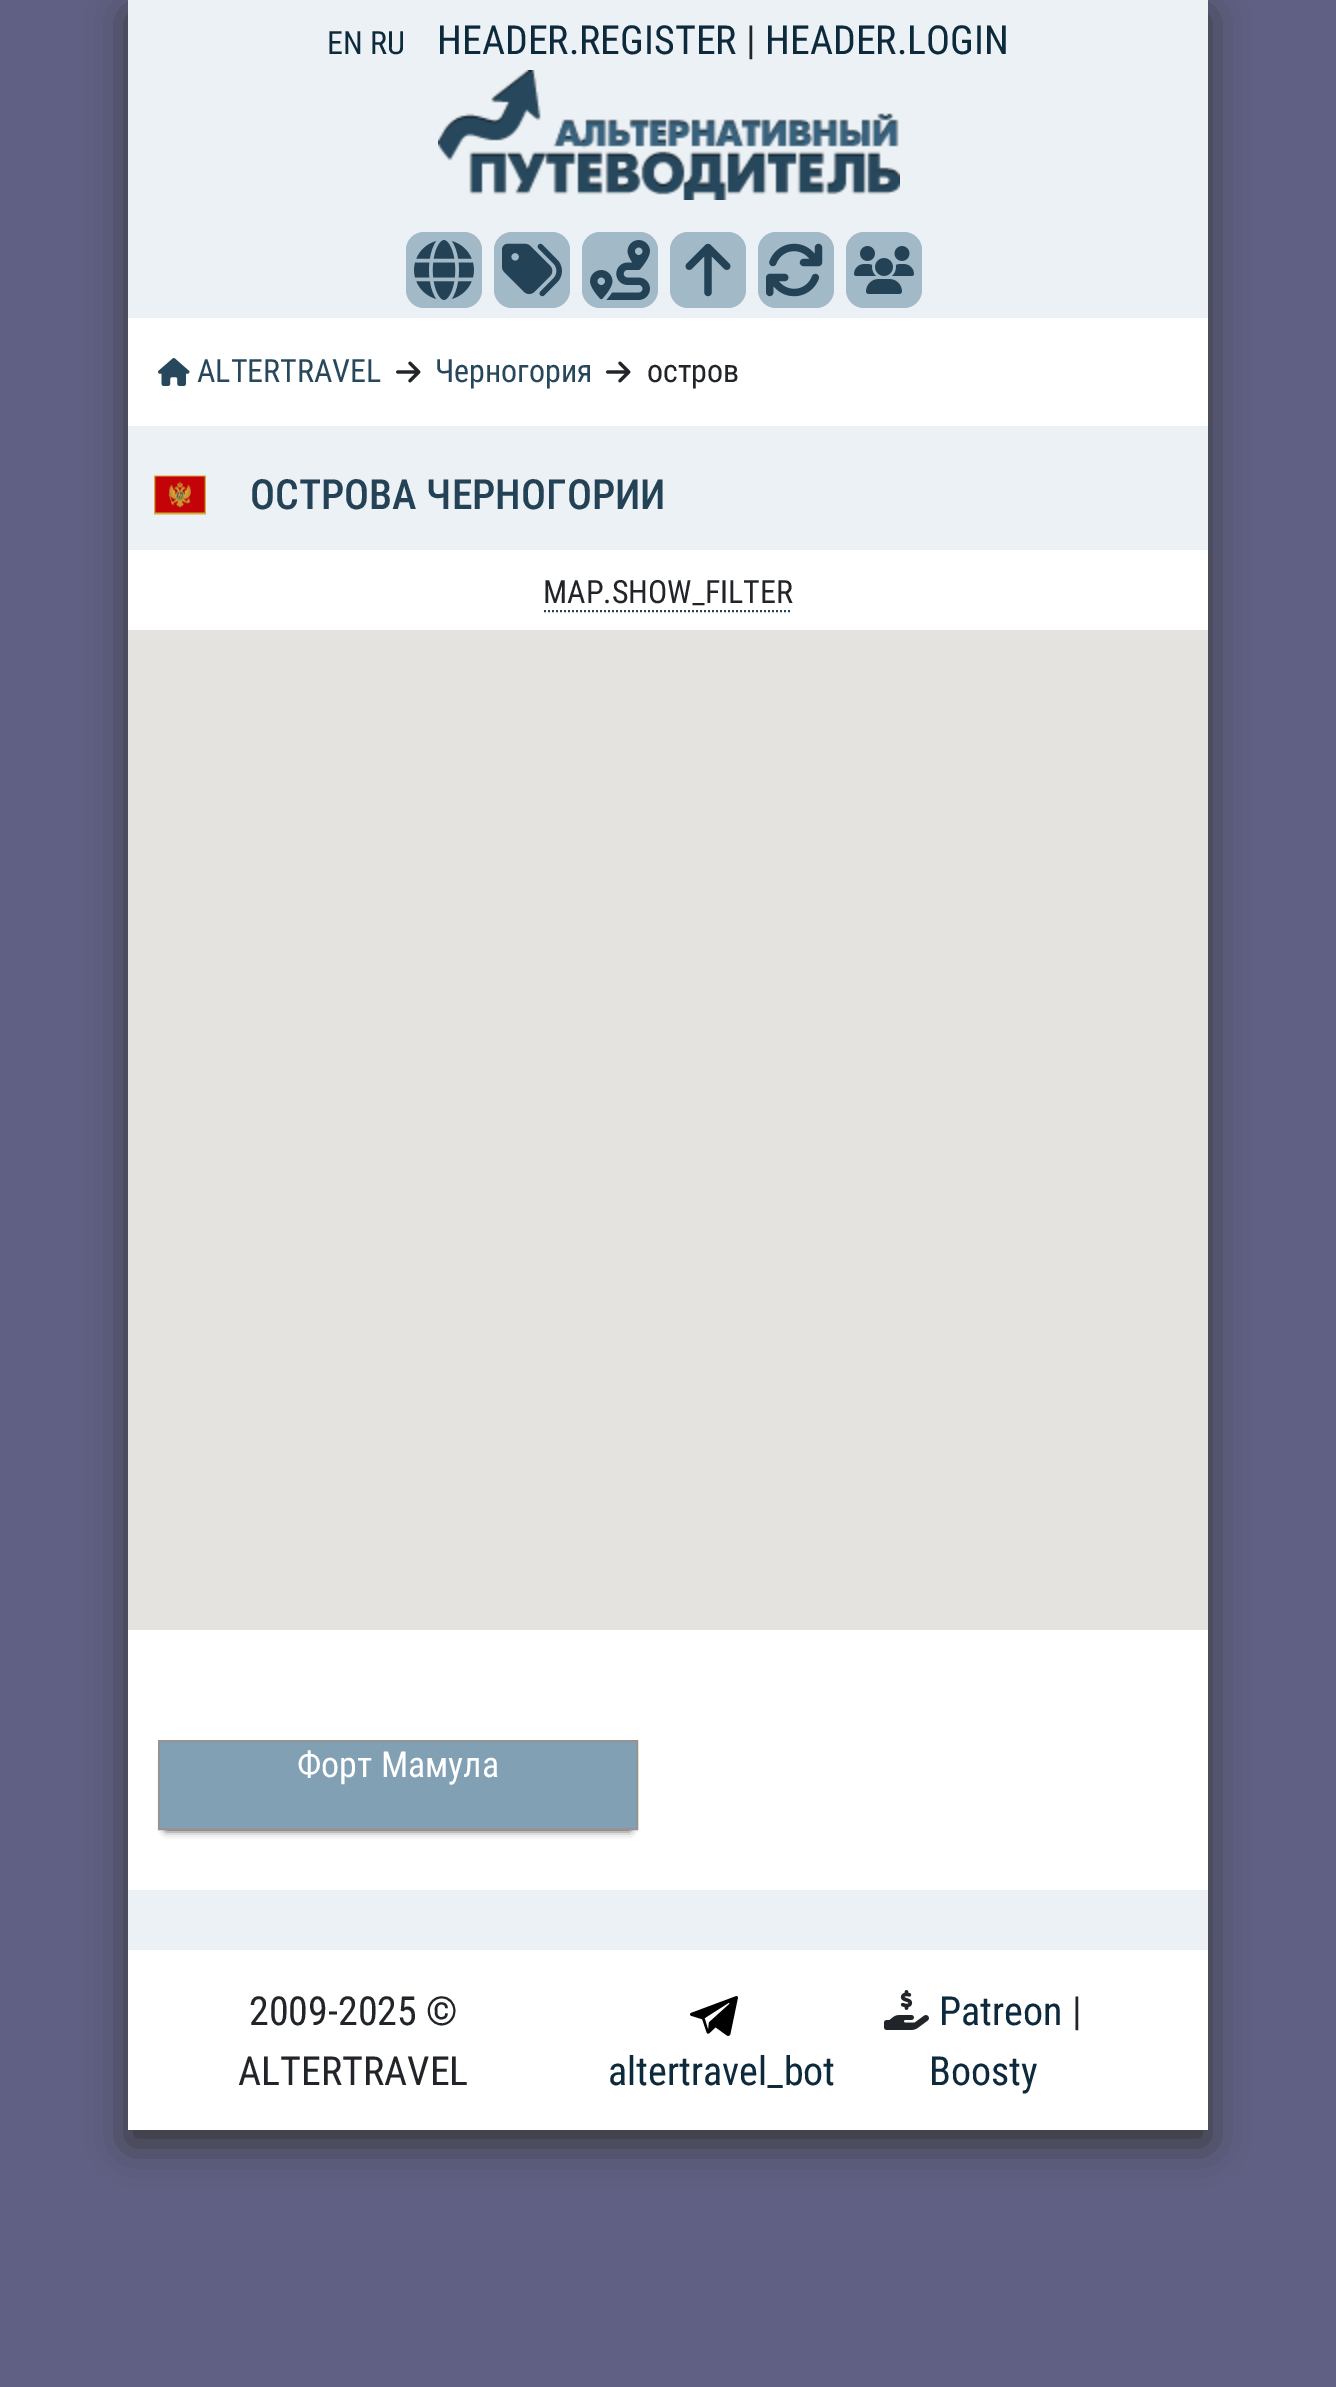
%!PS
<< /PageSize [1336 2387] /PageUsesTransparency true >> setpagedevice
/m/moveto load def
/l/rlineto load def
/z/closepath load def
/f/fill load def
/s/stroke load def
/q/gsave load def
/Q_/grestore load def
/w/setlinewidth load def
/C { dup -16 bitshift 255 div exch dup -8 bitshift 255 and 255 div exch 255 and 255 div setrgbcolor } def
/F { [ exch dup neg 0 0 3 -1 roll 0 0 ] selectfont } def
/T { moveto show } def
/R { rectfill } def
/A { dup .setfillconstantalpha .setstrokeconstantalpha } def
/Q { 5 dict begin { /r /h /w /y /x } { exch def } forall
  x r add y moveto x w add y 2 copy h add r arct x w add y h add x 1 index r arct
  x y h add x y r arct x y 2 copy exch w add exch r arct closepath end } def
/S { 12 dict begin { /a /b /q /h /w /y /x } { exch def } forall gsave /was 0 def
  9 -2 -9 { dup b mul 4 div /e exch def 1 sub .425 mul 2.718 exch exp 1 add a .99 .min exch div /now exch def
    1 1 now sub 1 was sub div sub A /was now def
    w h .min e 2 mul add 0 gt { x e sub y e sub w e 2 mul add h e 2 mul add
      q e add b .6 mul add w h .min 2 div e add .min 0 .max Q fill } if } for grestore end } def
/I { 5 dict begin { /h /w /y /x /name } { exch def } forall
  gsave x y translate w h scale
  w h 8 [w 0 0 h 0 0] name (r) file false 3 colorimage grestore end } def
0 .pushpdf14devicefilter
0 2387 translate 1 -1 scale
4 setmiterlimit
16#606084 C
0 0 1336 2387 R
16#323232 C
128 14 1080 2130 0 20 .9 S
16#EBF1F5 C
128 0 1080 318 R
/RobotoCondensed-Regular 32 F
16#0D293C C
(EN RU) 327 54 T
/RobotoCondensed-Regular 40 F
(HEADER.REGISTER) 437 54 T
16#212529 C
(|) 746 54 T
16#0D293C C
(HEADER.LOGIN) 765 54 T
(1.rgb) 438 70 462 130 I
16#A2B9C8 C
406 232 76 76 18 Q f
(2.rgb) 414 240 60 60 I
494 232 76 76 18 Q f
(3.rgb) 502 243 60 54 I
582 232 76 76 18 Q f
(4.rgb) 590 240 60 60 I
670 232 76 76 18 Q f
(5.rgb) 685 243 46 54 I
758 232 76 76 18 Q f
(6.rgb) 766 243 57 54 I
846 232 76 76 18 Q f
(7.rgb) 854 246 60 48 I
16#FFFFFF C
128 318 1080 108 R
(8.rgb) 158 358 32 28 I
/RobotoCondensed-Regular 32 F
16#27475C C
(ALTERTRAVEL) 197 382 T
(9.rgb) 396 361 25 22 I
(Черногория) 435 382 T
(9.rgb) 606 361 25 22 I
16#212529 C
(остров) 647 382 T
16#EBF1F5 C
128 426 1080 124 R
(10.rgb) 154 475 52 40 I
/RobotoCondensed-Medium 41.6 F
16#244255 C
(ОСТРОВА ЧЕРНОГОРИИ) 250 509 T
16#FFFFFF C
128 550 1080 80 R
/RobotoCondensed-Regular 32 F
16#212529 C
(MAP.SHOW_FILTER) 543 603 T
16#244255 C
2 w
[2 2] 0 setdash
544 611 m 248 0 l s
16#E5E3DF C
128 630 1080 1000 R
16#FFFFFF C
128 1630 1080 260 R
16#1A1A1A C
166 1756 464 74 0 4 1 S
16#82A0B3 C
159 1741 m 478 0 l 0 88 l -478 0 l z q f Q_
16#949494 C
[] 0 setdash
s
/RobotoCondensed-Regular 36 F
16#FFFFFF C
(Форт Мамула) 297 1777 T
16#EBF1F5 C
128 1890 1080 60 R
16#FFFFFF C
128 1950 1080 180 R
/RobotoCondensed-Regular 40 F
16#212529 C
(2009-2025 ©) 249 2025 T
(ALTERTRAVEL) 238 2085 T
(11.rgb) 690 1996 48 40 I
16#0D293C C
(altertravel_bot) 608 2085 T
(12.rgb) 884 1990 45 40 I
(Patreon) 939 2025 T
16#212529 C
(|) 1072 2025 T
16#0D293C C
(Boosty) 929 2085 T
.poppdf14devicefilter showpage
